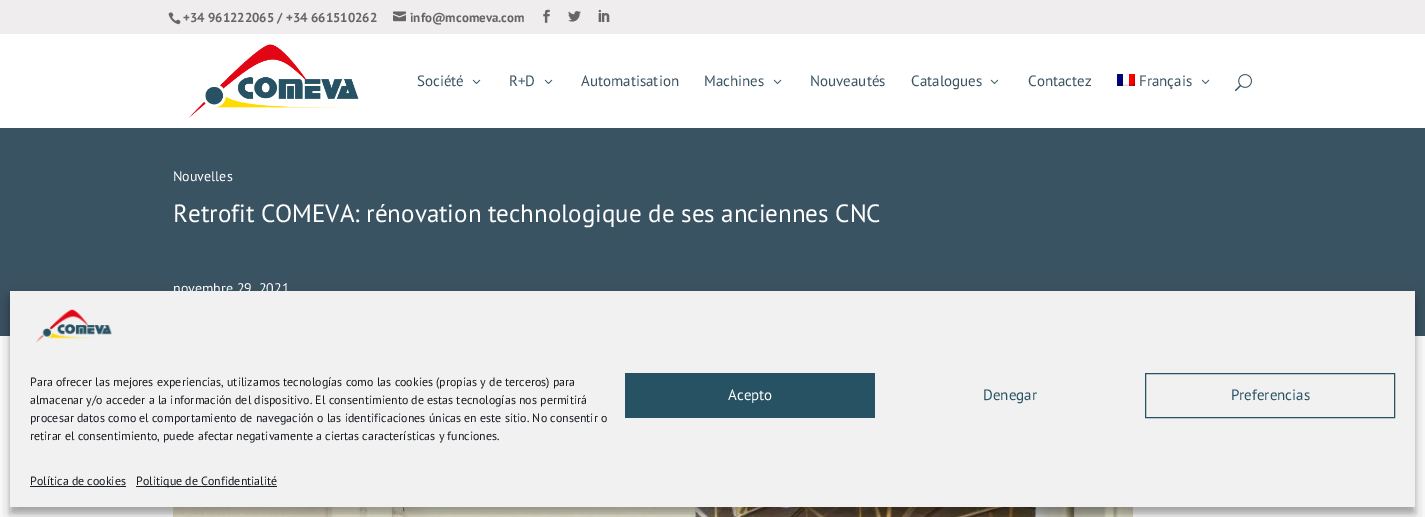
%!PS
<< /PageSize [1425 517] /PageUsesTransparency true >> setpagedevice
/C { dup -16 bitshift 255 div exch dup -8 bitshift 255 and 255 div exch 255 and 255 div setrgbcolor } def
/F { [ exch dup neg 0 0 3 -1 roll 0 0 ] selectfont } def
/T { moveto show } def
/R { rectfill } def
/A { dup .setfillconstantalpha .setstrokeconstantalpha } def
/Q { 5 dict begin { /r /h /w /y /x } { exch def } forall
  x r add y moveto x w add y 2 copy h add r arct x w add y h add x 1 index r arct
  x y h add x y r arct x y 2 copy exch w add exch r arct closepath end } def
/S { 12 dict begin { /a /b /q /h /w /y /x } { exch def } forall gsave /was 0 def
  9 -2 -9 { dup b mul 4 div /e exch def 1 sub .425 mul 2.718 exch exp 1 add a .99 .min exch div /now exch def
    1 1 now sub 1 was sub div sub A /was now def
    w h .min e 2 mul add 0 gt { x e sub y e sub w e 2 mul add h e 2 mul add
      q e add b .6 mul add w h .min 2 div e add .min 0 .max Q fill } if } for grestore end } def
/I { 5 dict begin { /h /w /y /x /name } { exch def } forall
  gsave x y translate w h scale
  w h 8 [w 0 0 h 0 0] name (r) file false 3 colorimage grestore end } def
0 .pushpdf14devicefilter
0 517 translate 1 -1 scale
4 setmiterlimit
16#FFFFFF C
0 0 1425 517 R
16#EFEDED C
0 0 1425 34 R
(1.rgb) 168 12 13 13 I
/PTSans-Bold 13 F
16#666666 C
(+34 961222065 / +34 661510262) 183 22 T
(2.rgb) 393 11 13 11 I
(info@mcomeva.com) 410 22 T
(3.rgb) 543 9 7 14 I
(4.rgb) 568 11 13 11 I
(5.rgb) 598 9 12 13 I
(6.rgb) 189 44 170 74 I
/PTSans-Regular 15 F
16#3A5362 C
(Société) 417 86 T
(7.rgb) 472 79 9 5 I
(R+D) 509 86 T
(7.rgb) 544 79 9 5 I
(Automatisation) 581 86 T
(Machines) 704 86 T
(7.rgb) 773 79 9 5 I
(Nouveautés) 810 86 T
(Catalogues) 911 86 T
(7.rgb) 990 79 9 5 I
(Contactez) 1028 86 T
(8.rgb) 1117 74 18 12 I
(Français) 1139 86 T
(7.rgb) 1201 79 9 5 I
(9.rgb) 1235 74 17 18 I
0 128 1425 208 R
/PTSans-Regular 14 F
16#FFFFFF C
(Nouvelles) 173 181 T
/PTSans-Regular 25 F
(Retrofit COMEVA: rénovation technologique de ses anciennes CNC) 173 222 T
/PTSans-Regular 14 F
(novembre 29, 2021) 173 293 T
(10.rgb) 173 507 960 10 I
16#000000 C
10 297 1405 216 0 3 .23 S
10 301 1405 216 0 10 .19 S
16#F1F1F1 C
10 291 1405 216 R
(11.rgb) 35 309 78 34 I
/PTSans-Regular 12 F
16#191E23 C
(Para ofrecer las mejores experiencias, utilizamos tecnologías como las cookies \(propias y de terceros\) para) 30 386 T
(almacenar y/o acceder a la información del dispositivo. El consentimiento de estas tecnologías nos permitirá) 30 404 T
(procesar datos como el comportamiento de navegación o las identificaciones únicas en este sitio. No consentir o) 30 422 T
(retirar el consentimiento, puede afectar negativamente a ciertas características y funciones.) 30 440 T
16#275263 C
625 373 250 45 R
/PTSans-Regular 15 F
16#FFFFFF C
(Acepto) 728 400 T
16#275263 C
(Denegar) 983 400 T
1145.5 373.5 249 44 rectstroke
(Preferencias) 1231 400 T
/PTSans-Regular 12 F
16#191E23 C
(Política de cookies) 30 485 T
30 486 96 1 R
136 486 141 1 R
(Politique de Confidentialité) 136 485 T
.poppdf14devicefilter showpage
